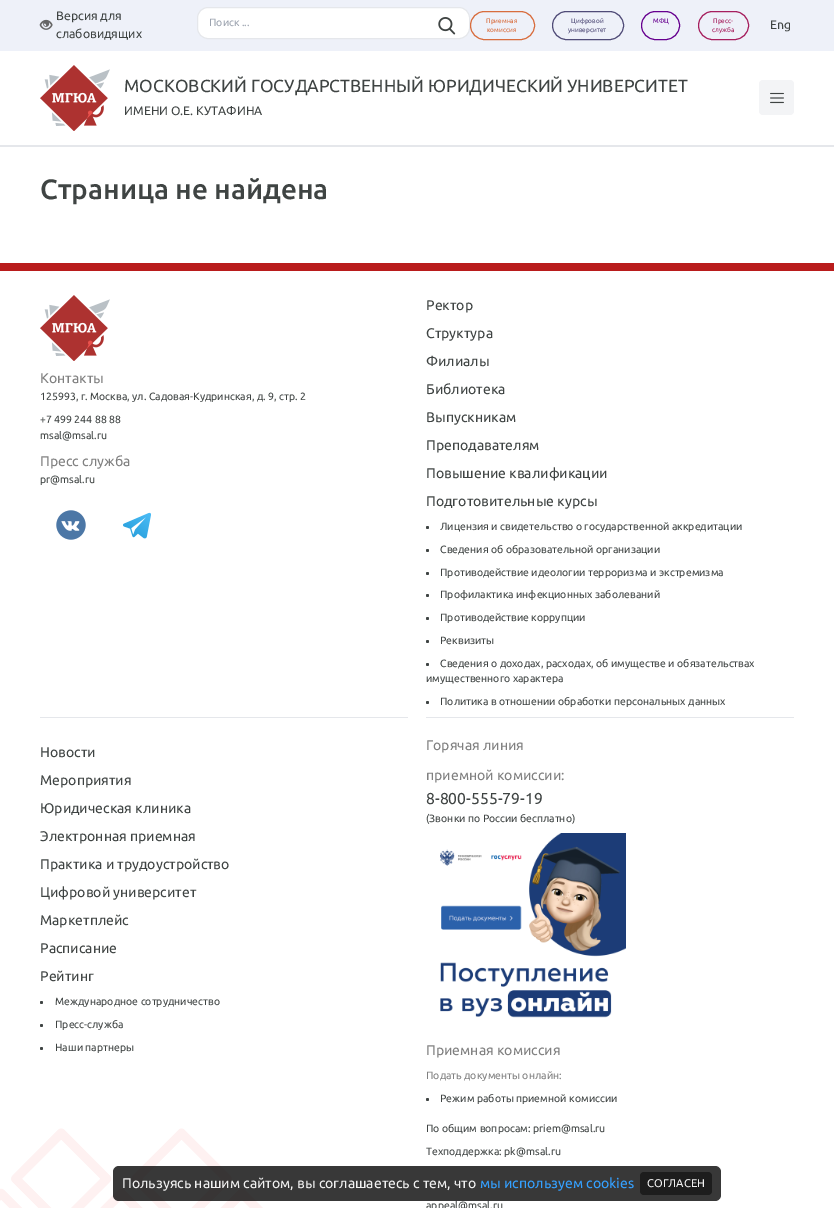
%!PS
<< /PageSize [834 1208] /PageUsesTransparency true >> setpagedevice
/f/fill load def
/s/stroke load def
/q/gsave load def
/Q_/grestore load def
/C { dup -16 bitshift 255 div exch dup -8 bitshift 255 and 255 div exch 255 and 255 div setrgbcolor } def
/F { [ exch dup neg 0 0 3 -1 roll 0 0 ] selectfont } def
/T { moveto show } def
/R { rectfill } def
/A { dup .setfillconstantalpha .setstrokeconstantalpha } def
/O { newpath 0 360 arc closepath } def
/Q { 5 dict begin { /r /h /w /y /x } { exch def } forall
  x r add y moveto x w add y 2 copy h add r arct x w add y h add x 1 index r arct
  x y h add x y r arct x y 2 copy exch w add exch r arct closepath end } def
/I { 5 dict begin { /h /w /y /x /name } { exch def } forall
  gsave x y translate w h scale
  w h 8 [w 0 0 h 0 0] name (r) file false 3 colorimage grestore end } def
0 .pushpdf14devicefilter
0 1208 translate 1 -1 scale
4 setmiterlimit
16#FFFFFF C
0 0 834 1208 R
16#EEF1F9 C
0 0 834 51 R
/Ubuntu-Regular 12.25 F
16#3F4443 C
(Версия для) 56 20 T
(1.rgb) 39 19 14 11 I
(слабовидящих) 56 38 T
16#FFFFFF C
197.5 7.5 272 31 10.5 Q q f Q_
16#E5E7EB C
s
/Ubuntu-Regular 10.5 F
16#9CA3AF C
(Поиск ...) 209 26 T
(2.rgb) 438 17 18 18 I
16#D86D3E C
470.5 11.5 64 28 14 Q s
/Ubuntu-Regular 6.5 F
(Приемная) 486 23 T
(комиссия) 487 32 T
16#504C78 C
552.5 11.5 71 28 14 Q s
(Цифровой) 571 23 T
(университет) 568 32 T
16#66008F C
641.5 11.5 38 28 14 Q s
(МФЦ) 653 23 T
16#A61F5E C
698.5 11.5 50 28 14 Q s
(Пресс-) 713 23 T
(служба) 712 32 T
/Ubuntu-Regular 12.25 F
16#3F4443 C
(Eng) 770 29 T
16#E5E7EB C
0 145 834 2 R
(3.rgb) 40 65 70 66 I
/Ubuntu-Regular 17.5 F
16#3F4443 C
(МОСКОВСКИЙ ГОСУДАРСТВЕННЫЙ ЮРИДИЧЕСКИЙ УНИВЕРСИТЕТ) 124 92 T
/Ubuntu-Regular 12.25 F
(ИМЕНИ О.Е. КУТАФИНА) 124 115 T
16#F3F4F6 C
759 80 35 35 4 Q f
(4.rgb) 770 92 14 12 I
/Ubuntu-Medium 28 F
16#3F4443 C
(Страница не найдена) 40 199 T
16#B91C1C C
0 263 834 8 R
(5.rgb) 0 1128 263 80 I
16#E5E7EB C
40 717 368 1 R
(3.rgb) 40 295 70 66 I
/Ubuntu-Regular 14 F
16#808080 C
(Контакты) 40 383 T
/Ubuntu-Regular 10.5 F
16#3F4443 C
(125993, г. Москва, ул. Садовая-Кудринская, д. 9, стр. 2) 40 400 T
(+7 499 244 88 88) 40 423 T
(msal@msal.ru) 40 439 T
/Ubuntu-Regular 14 F
16#808080 C
(Пресс служба) 40 466 T
/Ubuntu-Regular 10.5 F
16#3F4443 C
(pr@msal.ru) 40 483 T
(6.rgb) 56 510 30 30 I
(7.rgb) 123 512 28 27 I
16#E5E7EB C
426 717 368 1 R
/Ubuntu-Regular 14 F
16#3F4443 C
(Ректор) 426 310 T
(Структура) 426 338 T
(Филиалы) 426 366 T
(Библиотека) 426 394 T
(Выпускникам) 426 422 T
(Преподавателям) 426 450 T
(Повышение квалификации) 426 478 T
(Подготовительные курсы) 426 506 T
427.5 527.5 1.5 O f
/Ubuntu-Regular 10.5 F
(Лицензия и свидетельство о государственной аккредитации) 440 530 T
427.5 550.5 1.5 O f
(Сведения об образовательной организации) 440 553 T
427.5 573.5 1.5 O f
(Противодействие идеологии терроризма и экстремизма) 440 576 T
427.5 595.5 1.5 O f
(Профилактика инфекционных заболеваний) 440 598 T
427.5 618.5 1.5 O f
(Противодействие коррупции) 440 621 T
427.5 641.5 1.5 O f
(Реквизиты) 440 644 T
427.5 664.5 1.5 O f
(Сведения о доходах, расходах, об имуществе и обязательствах) 440 667 T
(имущественного характера) 426 682 T
427.5 702.5 1.5 O f
(Политика в отношении обработки персональных данных) 440 705 T
/Ubuntu-Regular 14 F
(Новости) 40 757 T
(Мероприятия) 40 785 T
(Юридическая клиника) 40 813 T
(Электронная приемная) 40 841 T
(Практика и трудоустройство) 40 869 T
(Цифровой университет) 40 897 T
(Маркетплейс) 40 925 T
(Расписание) 40 953 T
(Рейтинг) 40 981 T
41.5 1002.5 1.5 O f
/Ubuntu-Regular 10.5 F
(Международное сотрудничество) 55 1005 T
41.5 1025.5 1.5 O f
(Пресс-служба) 55 1028 T
41.5 1048.5 1.5 O f
(Наши партнеры) 55 1051 T
/Ubuntu-Regular 14 F
16#808080 C
(Горячая линия) 426 750 T
(приемной комиссии:) 426 780 T
/Ubuntu-Regular 15.75 F
16#3F4443 C
(8-800-555-79-19) 426 804 T
/Ubuntu-Regular 10.5 F
(\(Звонки по России бесплатно\)) 426 822 T
(8.rgb) 440 833 186 185 I
/Ubuntu-Regular 14 F
16#808080 C
(Приемная комиссия) 426 1055 T
/Ubuntu-Regular 10.5 F
(Подать документы онлайн:) 426 1079 T
16#3F4443 C
427.5 1099.5 1.5 O f
(Режим работы приемной комиссии) 440 1102 T
(По общим вопросам: priem@msal.ru) 426 1132 T
(Техподдержка: pk@msal.ru) 426 1155 T
(appeal@msal.ru) 426 1209 T
0.78 A
16#000000 C
113 1166 608 35 6 Q f
/Ubuntu-Regular 14 F
1 A
16#F1F1F1 C
(Пользуясь нашим сайтом, вы соглашаетесь с тем, что) 122 1188 T
16#34A0FF C
(мы используем cookies) 480 1188 T
16#1D1D1D C
640 1172 72 23 4 Q f
/Ubuntu-Regular 11.25 F
16#F1F1F1 C
(СОГЛАСЕН) 647 1187 T
.poppdf14devicefilter showpage
